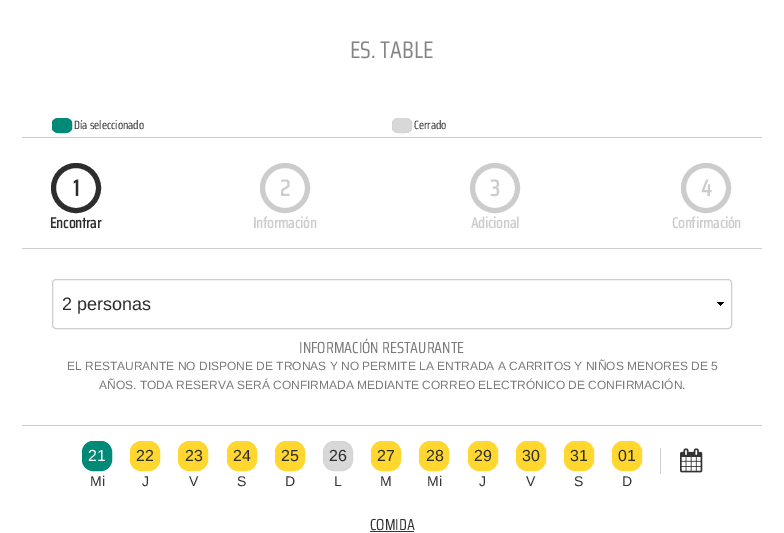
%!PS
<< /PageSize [784 533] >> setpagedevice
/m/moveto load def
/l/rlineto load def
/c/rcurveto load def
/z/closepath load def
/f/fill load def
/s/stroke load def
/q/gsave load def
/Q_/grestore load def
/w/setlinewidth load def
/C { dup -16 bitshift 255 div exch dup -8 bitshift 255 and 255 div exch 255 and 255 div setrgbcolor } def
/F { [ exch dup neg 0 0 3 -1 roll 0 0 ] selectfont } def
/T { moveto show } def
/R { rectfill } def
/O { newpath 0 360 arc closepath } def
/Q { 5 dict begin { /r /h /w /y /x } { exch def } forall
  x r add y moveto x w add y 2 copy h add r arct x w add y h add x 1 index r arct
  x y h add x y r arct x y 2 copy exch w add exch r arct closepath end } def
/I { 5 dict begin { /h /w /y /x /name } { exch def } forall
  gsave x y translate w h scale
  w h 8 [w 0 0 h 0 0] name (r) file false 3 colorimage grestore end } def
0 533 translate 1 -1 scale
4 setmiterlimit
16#FFFFFF C
0 0 784 533 R
16#CECECE C
22 137 740 1 R
/SairaCondensed-Regular 24 F
16#858585 C
(ES. TABLE) 350 58 T
16#028A78 C
59 118 m 6 0 l 4 0 7 2.5 7 5 c 0 5 l 0 2.5 -3 5 -7 5 c -6 0 l -4 0 -7 -2.5 -7 -5 c 0 -5 l 0 -2.5 3 -5 7 -5 c z f
59 118.5 m 6 0 l 3.5 0 6.5 2 6.5 4.5 c 0 5 l 0 2.5 -3 4.5 -6.5 4.5 c -6 0 l -3.5 0 -6.5 -2 -6.5 -4.5 c 0 -5 l 0 -2.5 3 -4.5 6.5 -4.5 c z s
/SairaCondensed-Regular 12 F
16#333333 C
(Día seleccionado) 74 129 T
16#D8D8D8 C
399 118 m 6 0 l 4 0 7 2.5 7 5 c 0 5 l 0 2.5 -3 5 -7 5 c -6 0 l -4 0 -7 -2.5 -7 -5 c 0 -5 l 0 -2.5 3 -5 7 -5 c z f
16#D5D5D5 C
399 118.5 m 6 0 l 3.5 0 6.5 2 6.5 4.5 c 0 5 l 0 2.5 -3 4.5 -6.5 4.5 c -6 0 l -3.5 0 -6.5 -2 -6.5 -4.5 c 0 -5 l 0 -2.5 3 -4.5 6.5 -4.5 c z s
16#333333 C
(Cerrado) 414 129 T
16#CECECE C
22 248 740 1 R
16#2D2D2D C
5 w
76 188 22.5 O s
/SairaCondensed-Bold 23 F
(1) 73 196 T
/SairaCondensed-Bold 15 F
(Encontrar) 50 228 T
16#CCCCCC C
285 188 22.5 O s
/SairaCondensed-Bold 23 F
(2) 280 196 T
/SairaCondensed-Bold 15 F
(Información) 253 228 T
495 188 22.5 O s
/SairaCondensed-Bold 23 F
(3) 490 196 T
/SairaCondensed-Bold 15 F
(Adicional) 471 228 T
706 188 22.5 O s
/SairaCondensed-Bold 23 F
(4) 701 196 T
/SairaCondensed-Bold 15 F
(Confirmación) 672 228 T
16#CECECE C
22 425 740 1 R
(1.rgb) 717 302 7 4 I
1 w
52.5 279.5 679 49 3.5 Q s
/LiberationSans-Regular 18 F
16#2D2D2D C
(2 personas) 62 310 T
/SairaCondensed-Regular 16 F
16#7A7A7A C
(INFORMACIÓN RESTAURANTE) 299 353 T
/LiberationSans-Regular 12 F
(EL RESTAURANTE NO DISPONE DE TRONAS Y NO PERMITE LA ENTRADA A CARRITOS Y NIÑOS MENORES DE 5) 67 370 T
(AÑOS. TODA RESERVA SERÁ CONFIRMADA MEDIANTE CORREO ELECTRÓNICO DE CONFIRMACIÓN.) 99 389 T
16#028A78 C
82.5 441.5 29 29 10.5 Q q f Q_
s
/LiberationSans-Regular 16 F
16#FFFFFF C
(21) 88 461 T
/LiberationSans-Regular 14 F
16#333333 C
(Mi) 90 486 T
16#FFD72E C
130.5 441.5 29 29 10.5 Q q f Q_
s
/LiberationSans-Regular 16 F
16#2D2D2D C
(22) 136 461 T
/LiberationSans-Regular 14 F
16#333333 C
(J) 142 486 T
16#FFD72E C
178.5 441.5 29 29 10.5 Q q f Q_
s
/LiberationSans-Regular 16 F
16#2D2D2D C
(23) 185 461 T
/LiberationSans-Regular 14 F
16#333333 C
(V) 189 486 T
16#FFD72E C
227.5 441.5 29 29 10.5 Q q f Q_
s
/LiberationSans-Regular 16 F
16#2D2D2D C
(24) 233 461 T
/LiberationSans-Regular 14 F
16#333333 C
(S) 237 486 T
16#FFD72E C
275.5 441.5 29 29 10.5 Q q f Q_
s
/LiberationSans-Regular 16 F
16#2D2D2D C
(25) 281 461 T
/LiberationSans-Regular 14 F
16#333333 C
(D) 285 486 T
16#D8D8D8 C
323.5 441.5 29 29 10.5 Q q f Q_
16#D5D5D5 C
s
/LiberationSans-Regular 16 F
16#2D2D2D C
(26) 329 461 T
/LiberationSans-Regular 14 F
16#333333 C
(L) 334 486 T
16#FFD72E C
371.5 441.5 29 29 10.5 Q q f Q_
s
/LiberationSans-Regular 16 F
16#2D2D2D C
(27) 377 461 T
/LiberationSans-Regular 14 F
16#333333 C
(M) 380 486 T
16#FFD72E C
419.5 441.5 29 29 10.5 Q q f Q_
s
/LiberationSans-Regular 16 F
16#2D2D2D C
(28) 426 461 T
/LiberationSans-Regular 14 F
16#333333 C
(Mi) 427 486 T
16#FFD72E C
468.5 441.5 29 29 10.5 Q q f Q_
s
/LiberationSans-Regular 16 F
16#2D2D2D C
(29) 474 461 T
/LiberationSans-Regular 14 F
16#333333 C
(J) 479 486 T
16#FFD72E C
516.5 441.5 29 29 10.5 Q q f Q_
s
/LiberationSans-Regular 16 F
16#2D2D2D C
(30) 522 461 T
/LiberationSans-Regular 14 F
16#333333 C
(V) 526 486 T
16#FFD72E C
564.5 441.5 29 29 10.5 Q q f Q_
s
/LiberationSans-Regular 16 F
16#2D2D2D C
(31) 570 461 T
/LiberationSans-Regular 14 F
16#333333 C
(S) 574 486 T
16#FFD72E C
612.5 441.5 29 29 10.5 Q q f Q_
s
/LiberationSans-Regular 16 F
16#2D2D2D C
(01) 618 461 T
/LiberationSans-Regular 14 F
16#333333 C
(D) 622 486 T
16#CECECE C
660 448 1 26 R
(2.rgb) 680 448 23 25 I
/SairaCondensed-Regular 16 F
16#333333 C
(COMIDA) 370 530 T
370 531 44 1 R
showpage
